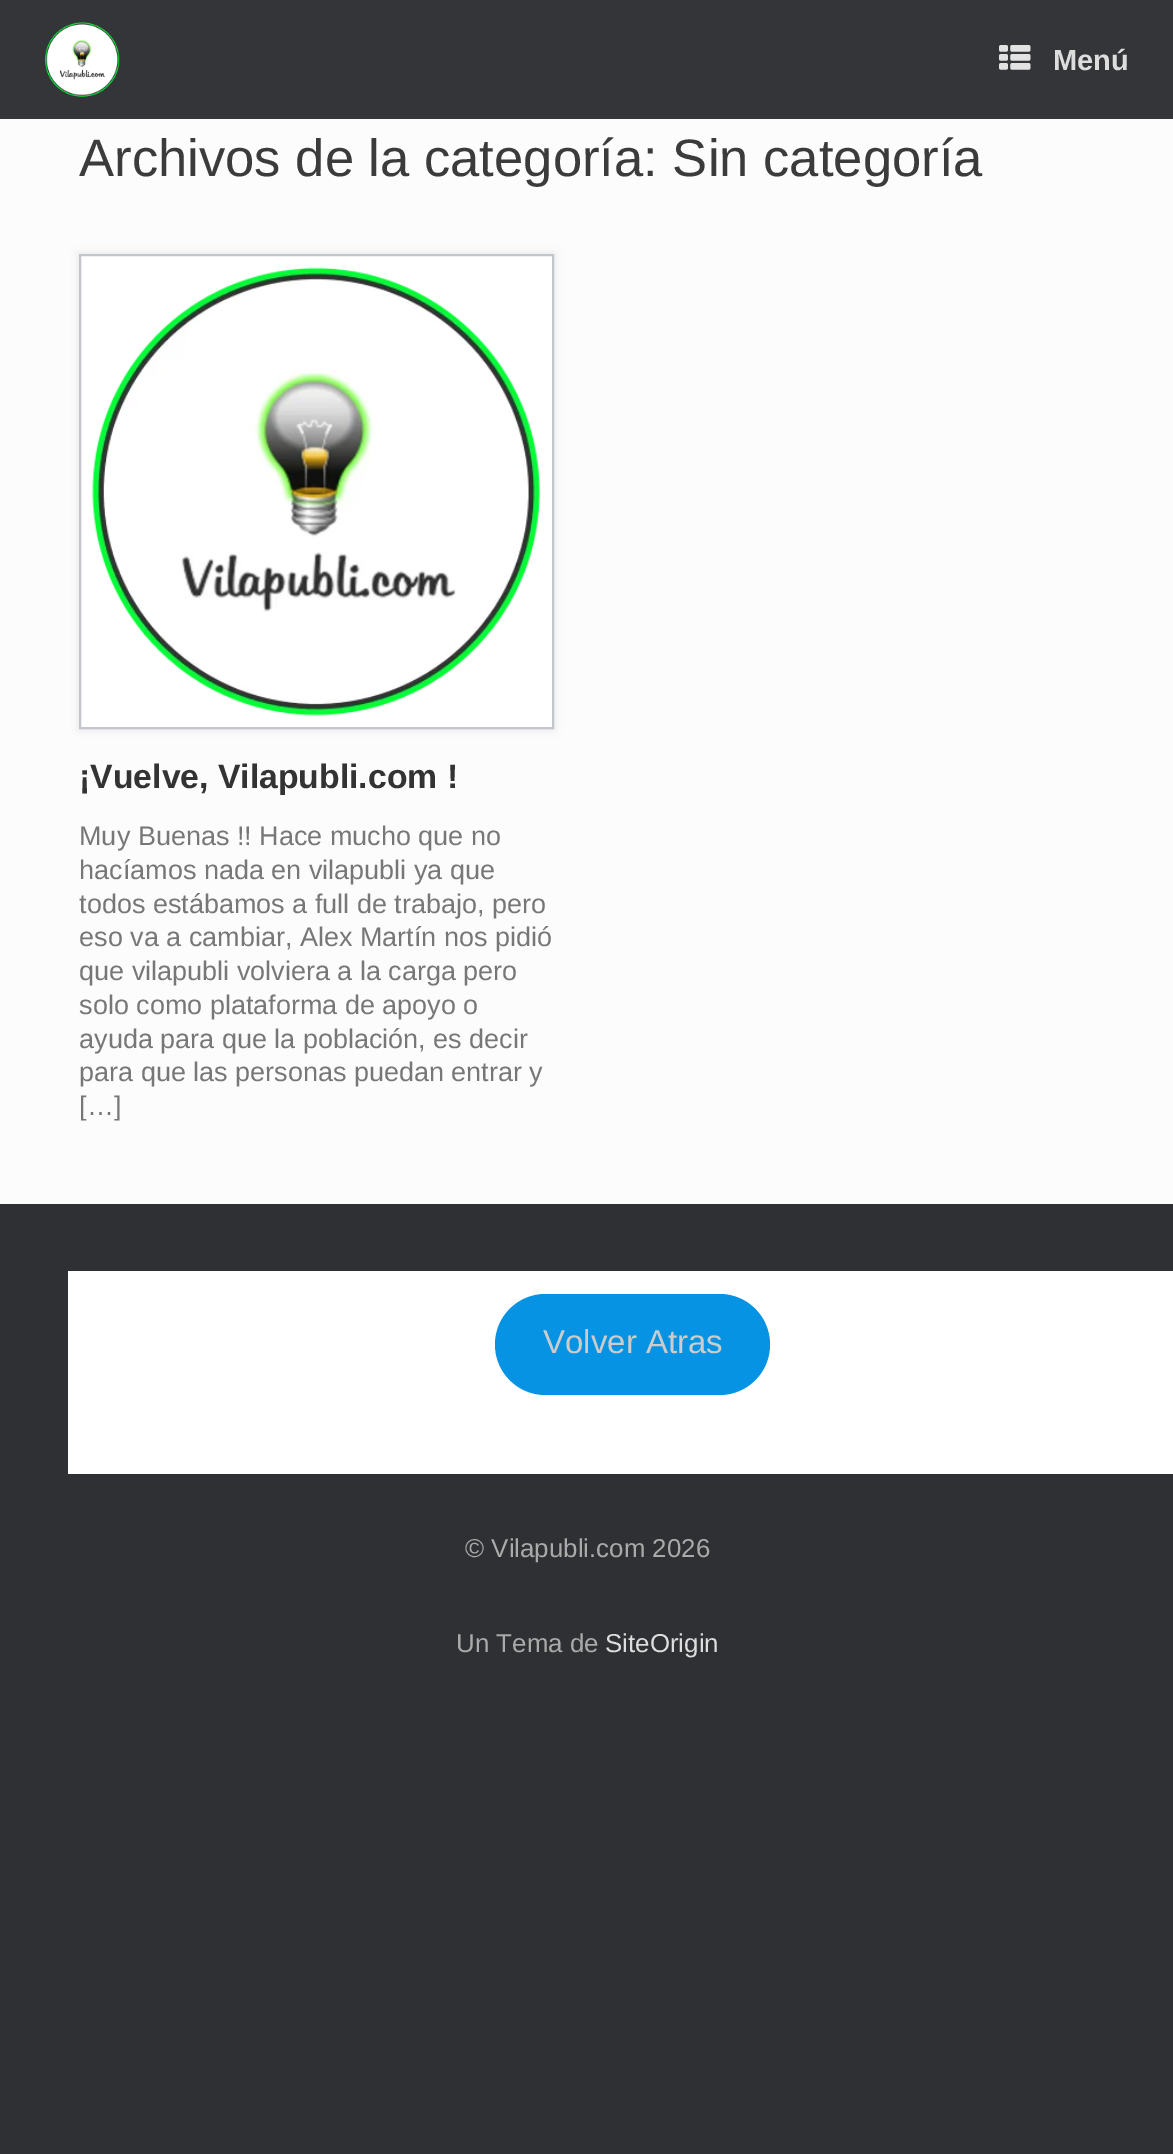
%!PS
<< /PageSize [1173 2154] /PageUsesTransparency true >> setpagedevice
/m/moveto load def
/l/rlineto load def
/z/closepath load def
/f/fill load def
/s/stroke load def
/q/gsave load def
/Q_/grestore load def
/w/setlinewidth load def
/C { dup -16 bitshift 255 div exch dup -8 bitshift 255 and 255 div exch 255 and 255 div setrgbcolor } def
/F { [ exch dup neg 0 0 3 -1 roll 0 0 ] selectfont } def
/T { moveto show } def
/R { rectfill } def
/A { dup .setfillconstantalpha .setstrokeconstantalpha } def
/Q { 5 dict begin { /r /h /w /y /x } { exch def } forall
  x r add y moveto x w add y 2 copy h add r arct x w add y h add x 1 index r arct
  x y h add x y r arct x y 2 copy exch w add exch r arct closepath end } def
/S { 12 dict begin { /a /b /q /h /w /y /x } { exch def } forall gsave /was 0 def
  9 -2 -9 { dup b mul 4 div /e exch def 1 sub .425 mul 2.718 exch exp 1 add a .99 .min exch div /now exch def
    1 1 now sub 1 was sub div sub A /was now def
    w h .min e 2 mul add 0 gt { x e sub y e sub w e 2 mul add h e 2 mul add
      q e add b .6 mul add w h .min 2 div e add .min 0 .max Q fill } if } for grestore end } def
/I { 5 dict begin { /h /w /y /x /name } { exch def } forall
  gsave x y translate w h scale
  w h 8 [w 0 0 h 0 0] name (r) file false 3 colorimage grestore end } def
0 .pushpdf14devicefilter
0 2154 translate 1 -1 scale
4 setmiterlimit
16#2F3033 C
0 0 1173 2154 R
16#343538 C
0 0 1173 119 R
(1.rgb) 45 22 75 75 I
(2.rgb) 999 45 32 25 I
/LiberationSans-Bold 29 F
16#DDDDDD C
(Menú) 1053 70 T
16#FCFCFC C
0 119 1173 1085 R
/LiberationSans-Regular 52.6 F
16#3B3B3B C
(Archivos de la categoría: Sin categoría) 79 176 T
16#000000 C
79 254 475 475 0 4.5 .1 S
16#FFFFFF C
80 255 m 473 0 l 0 473 l -473 0 l z q f Q_
16#C2C5CA C
2 w
s
(3.rgb) 92 267 448 449 I
/LiberationSans-Bold 33.75 F
16#333333 C
(¡Vuelve, Vilapubli.com !) 79 788 T
/LiberationSans-Regular 27 F
16#777777 C
(Muy Buenas !! Hace mucho que no) 79 845 T
(hacíamos nada en vilapubli ya que) 79 879 T
(todos estábamos a full de trabajo, pero) 79 913 T
(eso va a cambiar, Alex Martín nos pidió) 79 946 T
(que vilapubli volviera a la carga pero) 79 980 T
(solo como plataforma de apoyo o) 79 1014 T
(ayuda para que la población, es decir) 79 1048 T
(para que las personas puedan entrar y) 79 1081 T
([…]) 79 1115 T
16#FFFFFF C
68 1271 1105 203 R
16#0693E3 C
495 1294 275 101 50.5 Q f
/LiberationSans-Regular 33 F
16#CCCCCC C
(Volver Atras) 543 1353 T
/LiberationSans-Regular 25.9 F
16#AAAAAA C
(© Vilapubli.com 2026) 465 1557 T
(Un Tema de) 456 1652 T
16#DDDDDD C
(SiteOrigin) 605 1652 T
.poppdf14devicefilter showpage
